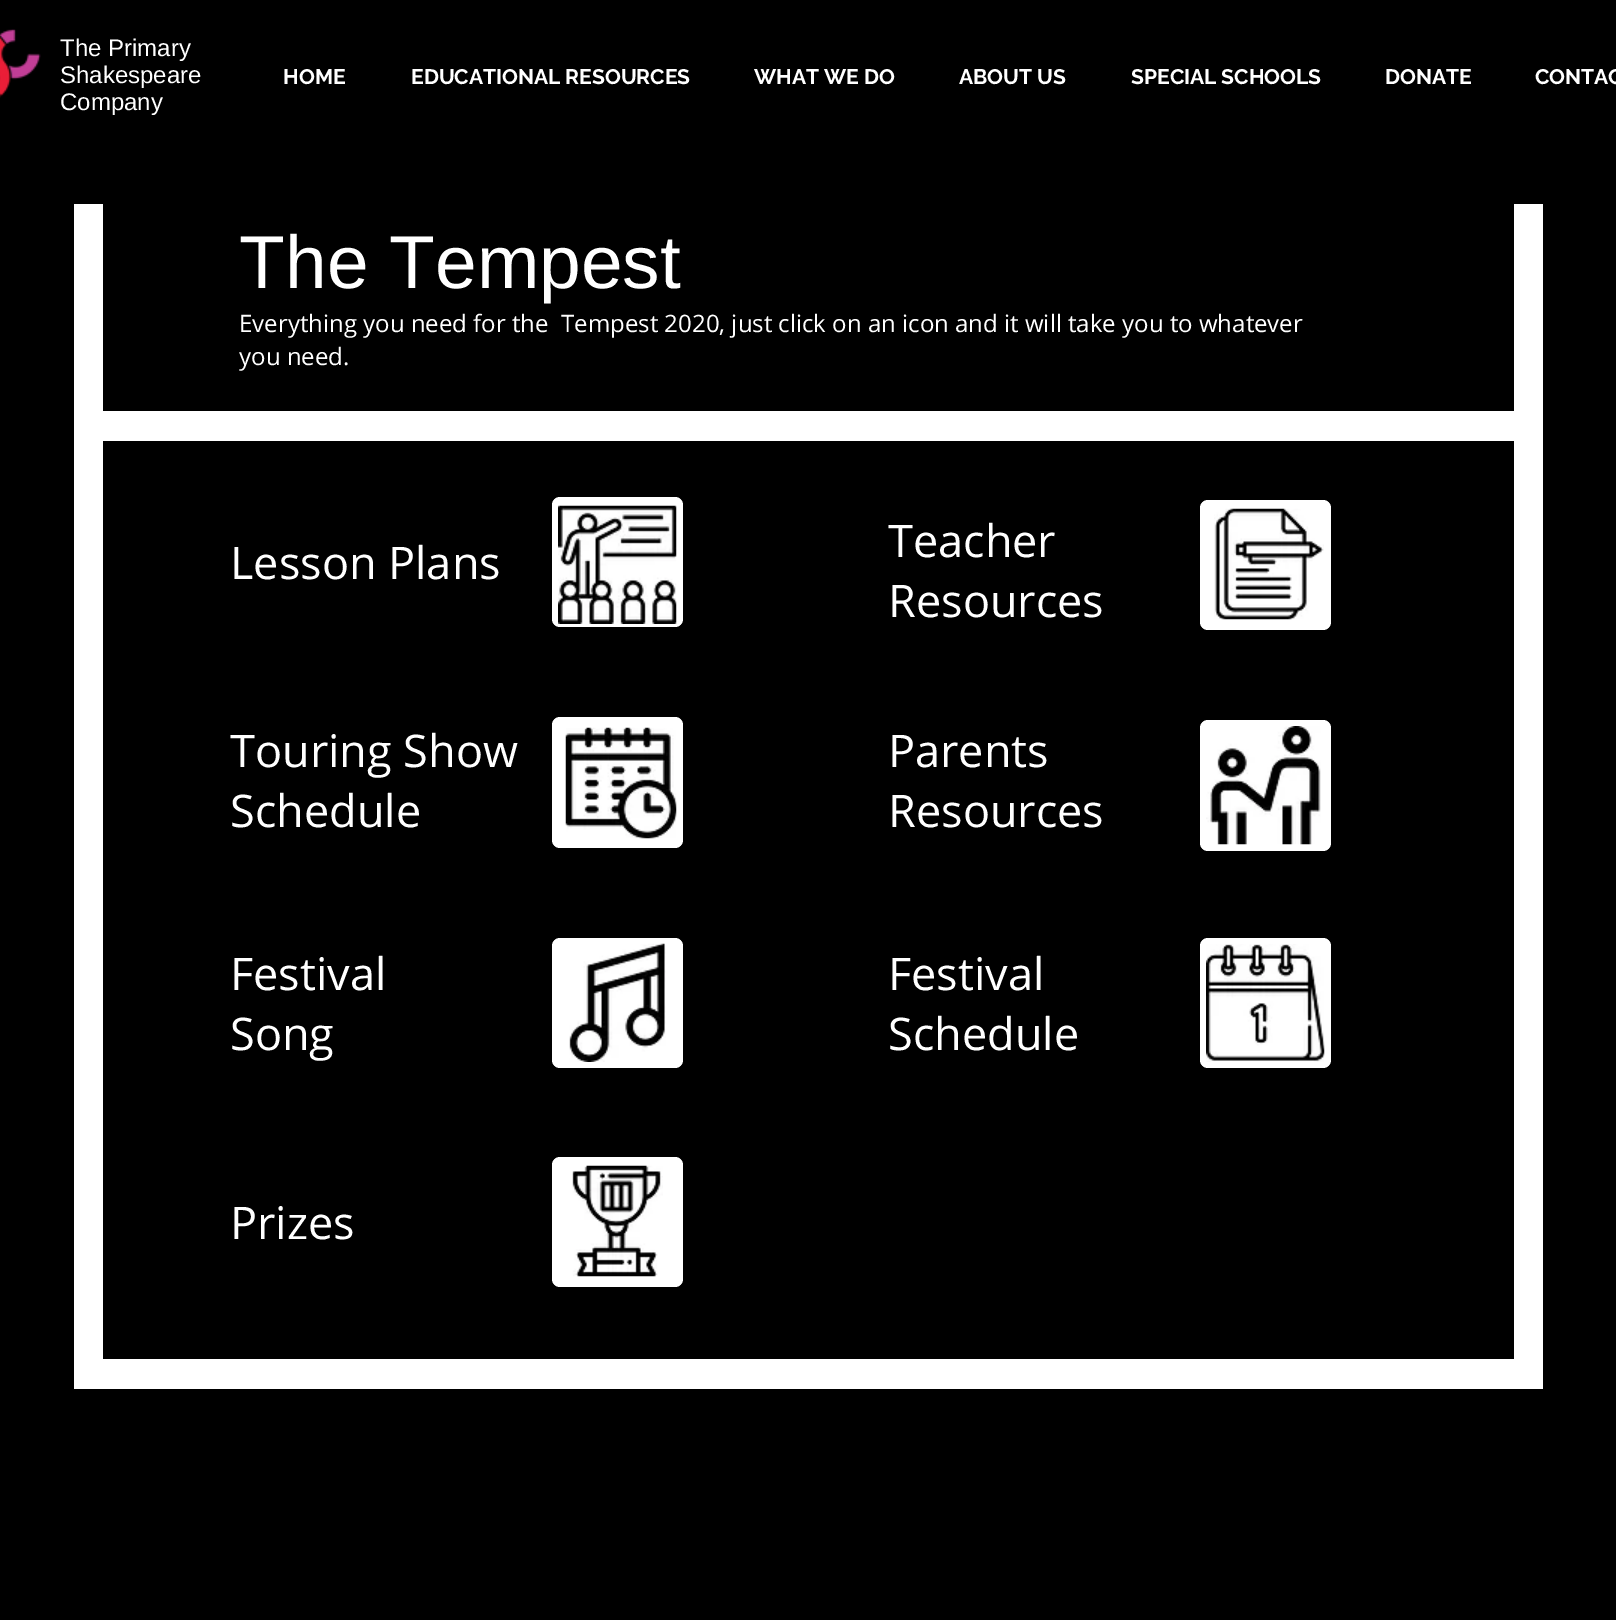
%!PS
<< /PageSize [1616 1620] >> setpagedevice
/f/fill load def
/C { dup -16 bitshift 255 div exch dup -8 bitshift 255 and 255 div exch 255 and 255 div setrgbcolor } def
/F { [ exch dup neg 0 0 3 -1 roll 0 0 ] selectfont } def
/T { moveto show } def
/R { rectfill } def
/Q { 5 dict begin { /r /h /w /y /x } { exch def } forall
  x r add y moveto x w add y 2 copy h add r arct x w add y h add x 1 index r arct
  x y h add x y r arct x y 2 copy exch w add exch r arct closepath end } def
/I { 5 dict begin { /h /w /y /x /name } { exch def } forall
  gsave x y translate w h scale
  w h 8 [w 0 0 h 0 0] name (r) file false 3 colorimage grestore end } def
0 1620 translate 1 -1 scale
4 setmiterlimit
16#000000 C
0 0 1616 1620 R
(1.rgb) 0 29 41 69 I
/LiberationSans-Regular 24 F
16#FFFFFF C
(The Primary) 60 56 T
(Shakespeare) 60 83 T
(Company) 60 110 T
/Raleway-Bold 21 F
(HOME) 283 84 T
(EDUCATIONAL RESOURCES) 411 84 T
(WHAT WE DO) 754 84 T
(ABOUT US) 959 84 T
(SPECIAL SCHOOLS) 1131 84 T
(DONATE) 1385 84 T
(CONTAC) 1535 84 T
74 204 29 1155 R
/LiberationSans-Regular 75 F
(The Tempest) 239 288 T
1514 204 29 1185 R
/OpenSans-Regular 24 F
(Everything you need for the  Tempest 2020, just click on an icon and it will take you to whatever) 239 332 T
(you need.) 239 365 T
103 411 1411 30 R
/OpenSans-Regular 45 F
(Lesson Plans) 230 579 T
552 497 131 130 8 Q f
(2.rgb) 558 505 119 119 I
(Teacher) 888 557 T
(Resources) 888 617 T
1200 500 131 130 8 Q f
(3.rgb) 1214 508 110 112 I
(Touring Show) 230 767 T
(Schedule) 230 827 T
552 717 131 131 8 Q f
(4.rgb) 565 727 112 112 I
(Parents) 888 767 T
(Resources) 888 827 T
1200 720 131 131 8 Q f
(5.rgb) 1206 726 115 119 I
(Festival) 230 990 T
(Song) 230 1050 T
552 938 131 130 8 Q f
(6.rgb) 569 943 97 119 I
(Festival) 888 990 T
(Schedule) 888 1050 T
1200 938 131 130 8 Q f
(7.rgb) 1206 944 119 118 I
(Prizes) 230 1239 T
552 1157 131 130 8 Q f
(8.rgb) 572 1165 91 112 I
74 1359 1440 30 R
showpage
